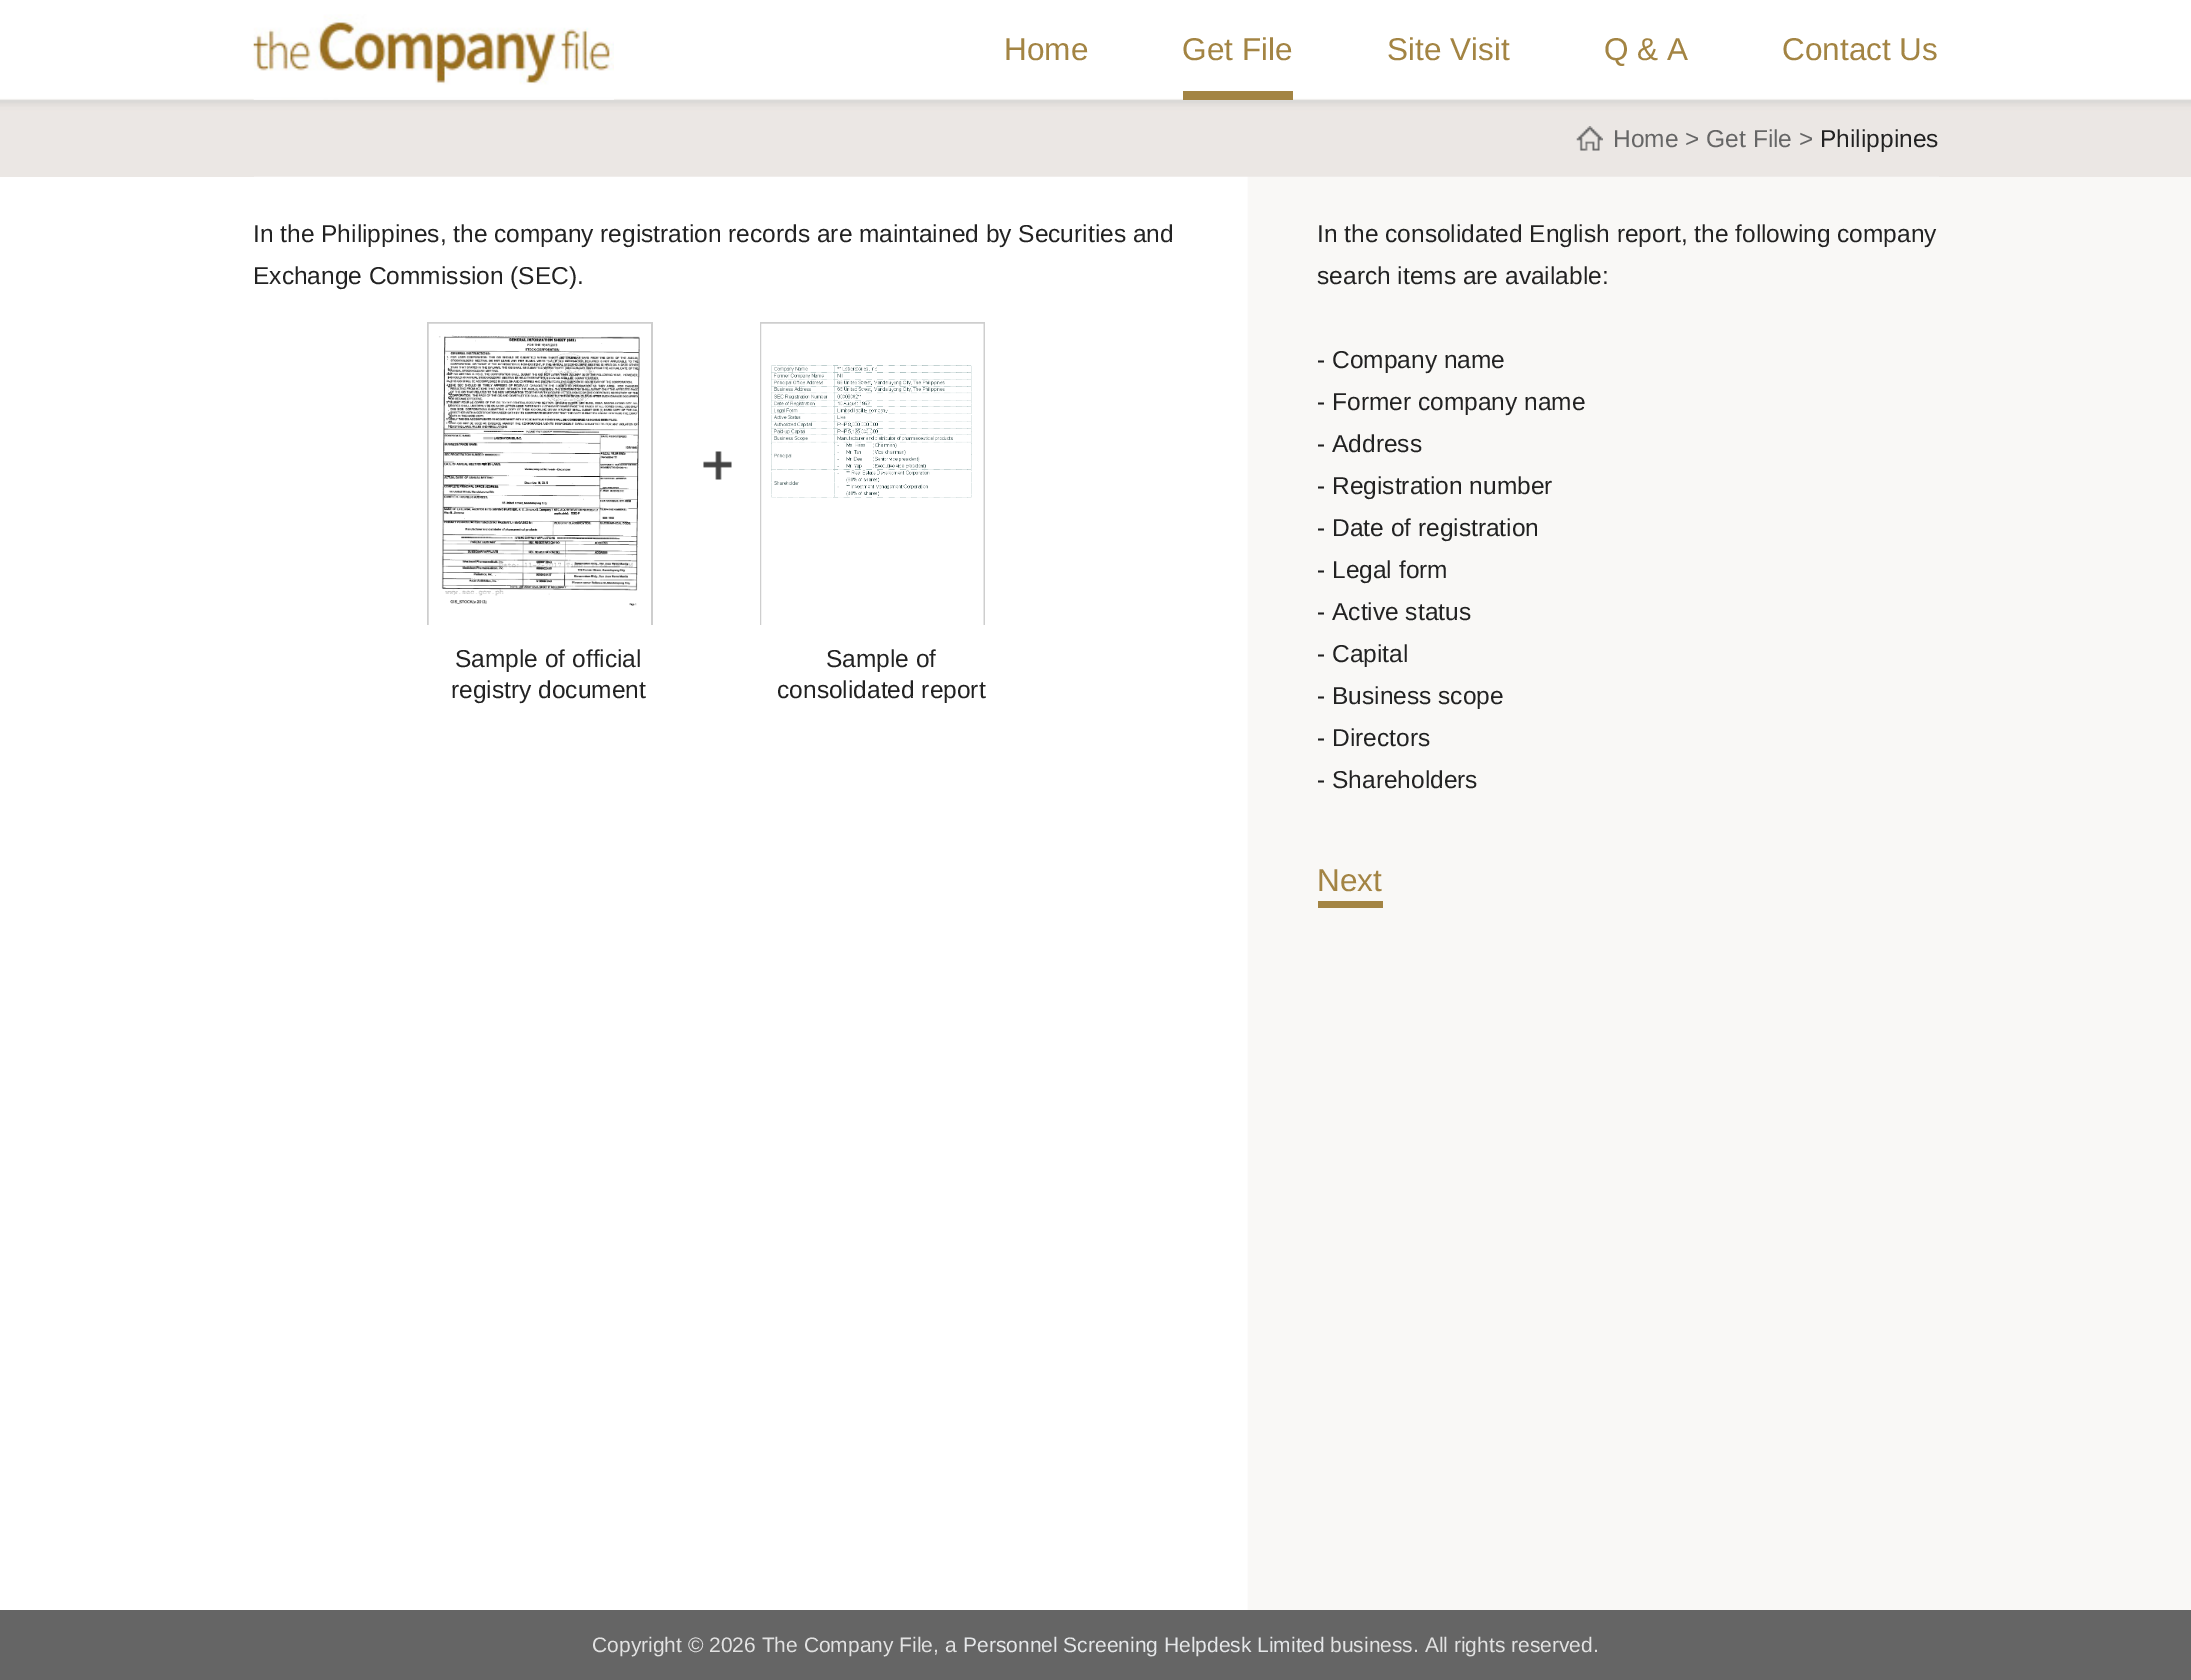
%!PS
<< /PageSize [2191 1680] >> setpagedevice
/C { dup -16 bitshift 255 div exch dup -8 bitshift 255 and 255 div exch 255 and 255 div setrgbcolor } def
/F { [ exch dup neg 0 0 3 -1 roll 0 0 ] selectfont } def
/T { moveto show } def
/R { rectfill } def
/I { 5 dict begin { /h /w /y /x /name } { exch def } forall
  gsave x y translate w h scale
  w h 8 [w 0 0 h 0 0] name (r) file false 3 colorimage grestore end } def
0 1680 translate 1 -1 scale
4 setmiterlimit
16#FFFFFF C
0 0 2191 1680 R
16#F9F8F6 C
1939 177 252 1433 R
(1.rgb) 0 0 2191 112 I
(2.rgb) 253 14 361 86 I
/LiberationSans-Regular 31.5 F
16#A38443 C
(Home) 1004 60 T
1183 91 110 9 R
(Get File) 1182 60 T
(Site Visit) 1387 60 T
(Q & A) 1604 60 T
(Contact Us) 1782 60 T
16#EBE7E4 C
0 112 2191 65 R
(3.rgb) 1576 126 27 25 I
/LiberationSans-Regular 24.5 F
16#666666 C
(Home > Get File >) 1613 147 T
16#222222 C
(Philippines) 1820 147 T
(4.rgb) 254 176 1685 1434 I
(In the Philippines, the company registration records are maintained by Securities and) 253 242 T
(Exchange Commission \(SEC\).) 253 284 T
(5.rgb) 703 451 29 29 I
16#CECECE C
427 322 226 303 R
(6.rgb) 428 323 223 302 I
16#222222 C
(Sample of official) 455 667 T
(registry document) 451 698 T
16#CECECE C
760 322 225 303 R
(7.rgb) 761 323 223 302 I
16#222222 C
(Sample of) 826 667 T
(consolidated report) 777 698 T
(In the consolidated English report, the following company) 1317 242 T
(search items are available:) 1317 284 T
(- Company name) 1317 368 T
(- Former company name) 1317 410 T
(- Address) 1317 452 T
(- Registration number) 1317 494 T
(- Date of registration) 1317 536 T
(- Legal form) 1317 578 T
(- Active status) 1317 620 T
(- Capital) 1317 662 T
(- Business scope) 1317 704 T
(- Directors) 1317 746 T
(- Shareholders) 1317 788 T
16#A38443 C
1318 901 65 7 R
/LiberationSans-Regular 31.5 F
(Next) 1317 891 T
16#656565 C
0 1610 2191 70 R
/LiberationSans-Regular 21 F
16#E2E2E2 C
(Copyright © 2026 The Company File, a) 592 1652 T
16#E5E7E9 C
(Personnel Screening Helpdesk Limited) 963 1652 T
16#E2E2E2 C
(business. All rights reserved.) 1330 1652 T
showpage
